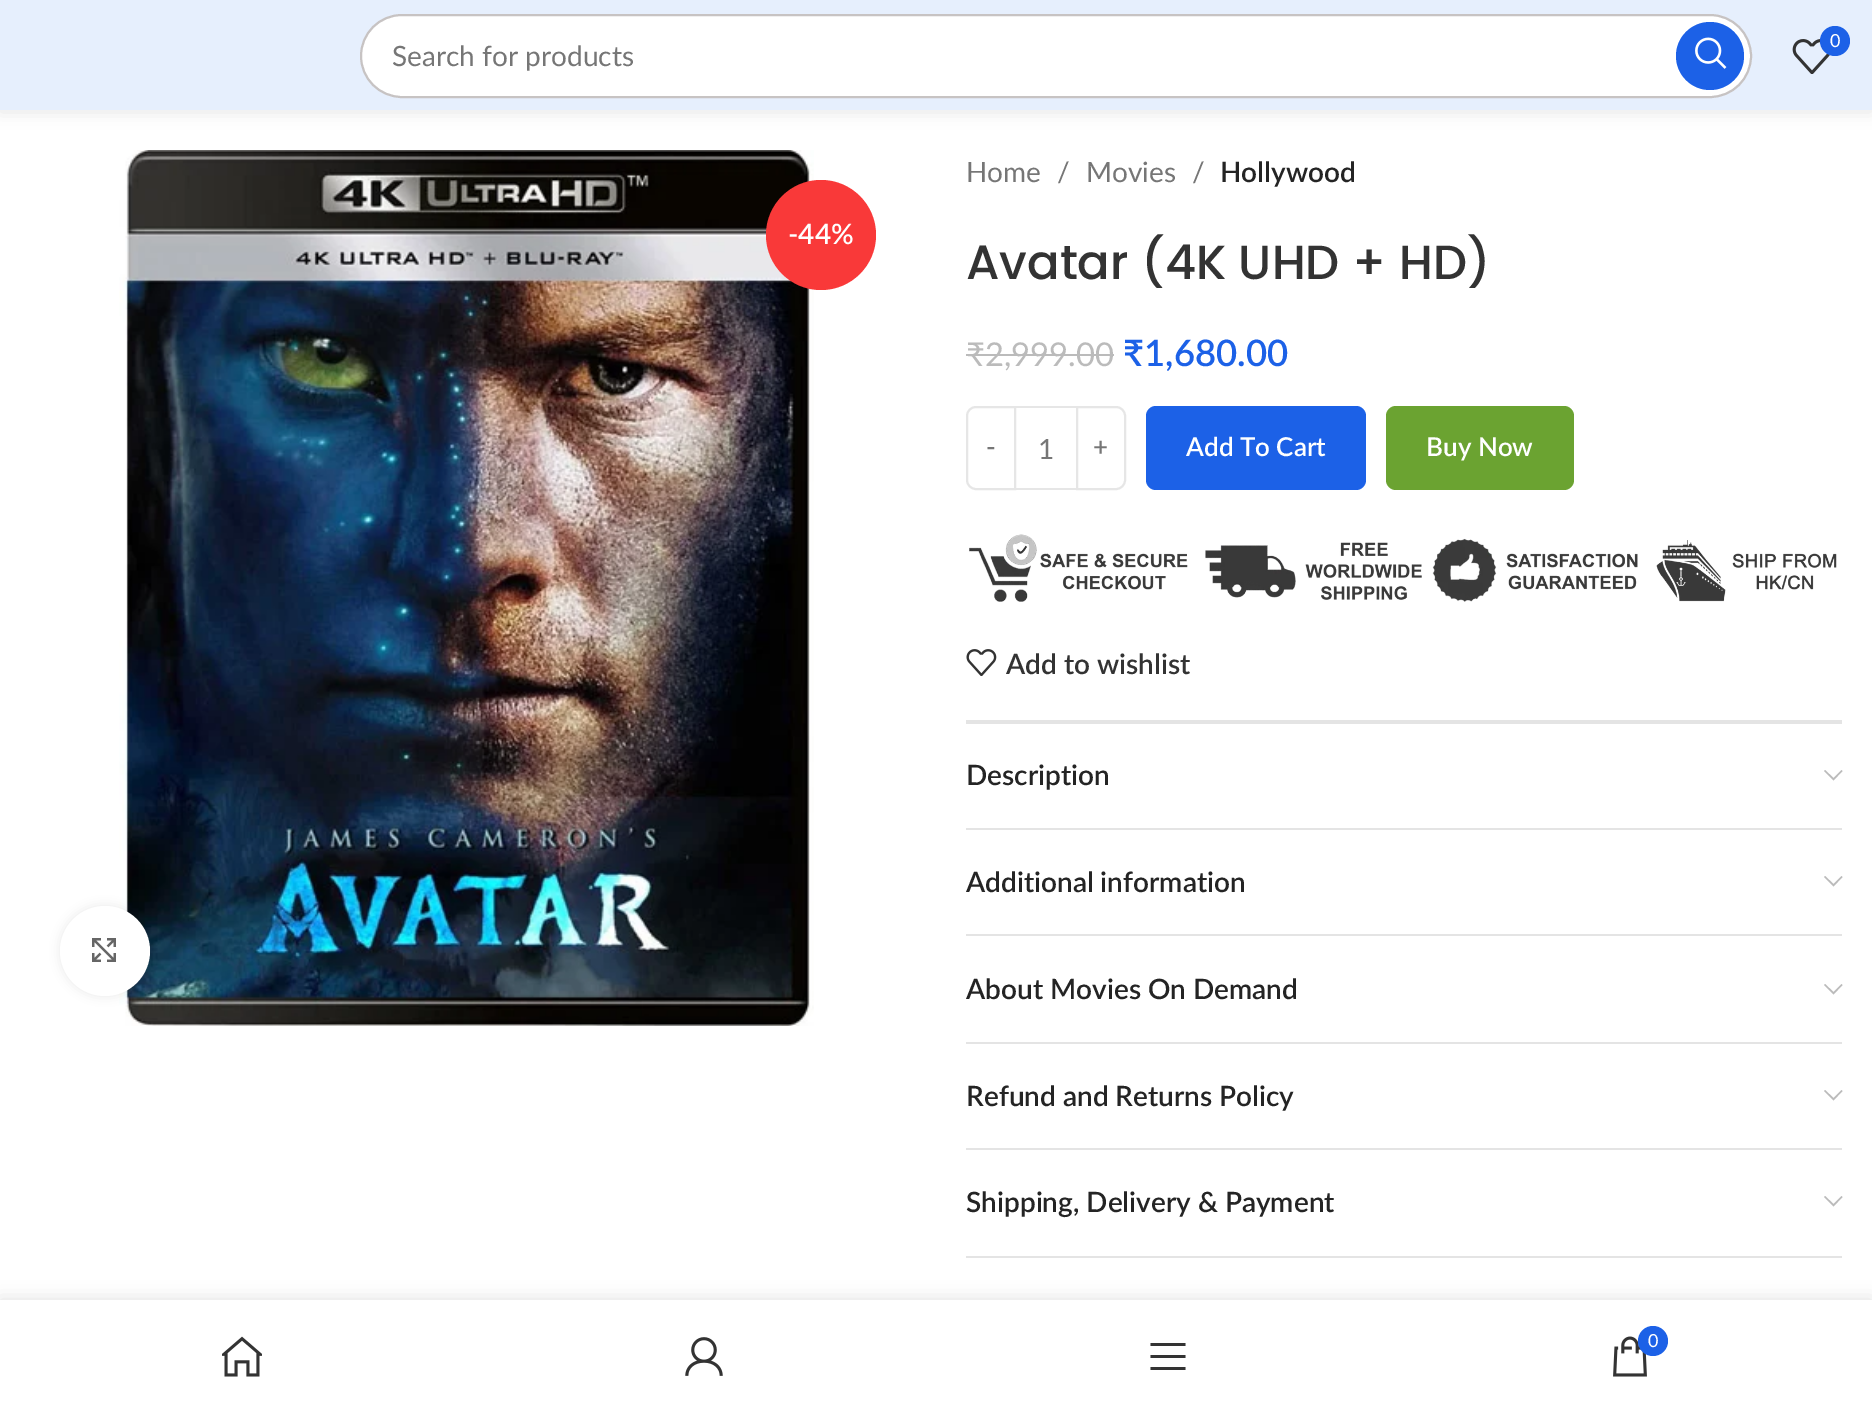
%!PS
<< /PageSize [1872 1409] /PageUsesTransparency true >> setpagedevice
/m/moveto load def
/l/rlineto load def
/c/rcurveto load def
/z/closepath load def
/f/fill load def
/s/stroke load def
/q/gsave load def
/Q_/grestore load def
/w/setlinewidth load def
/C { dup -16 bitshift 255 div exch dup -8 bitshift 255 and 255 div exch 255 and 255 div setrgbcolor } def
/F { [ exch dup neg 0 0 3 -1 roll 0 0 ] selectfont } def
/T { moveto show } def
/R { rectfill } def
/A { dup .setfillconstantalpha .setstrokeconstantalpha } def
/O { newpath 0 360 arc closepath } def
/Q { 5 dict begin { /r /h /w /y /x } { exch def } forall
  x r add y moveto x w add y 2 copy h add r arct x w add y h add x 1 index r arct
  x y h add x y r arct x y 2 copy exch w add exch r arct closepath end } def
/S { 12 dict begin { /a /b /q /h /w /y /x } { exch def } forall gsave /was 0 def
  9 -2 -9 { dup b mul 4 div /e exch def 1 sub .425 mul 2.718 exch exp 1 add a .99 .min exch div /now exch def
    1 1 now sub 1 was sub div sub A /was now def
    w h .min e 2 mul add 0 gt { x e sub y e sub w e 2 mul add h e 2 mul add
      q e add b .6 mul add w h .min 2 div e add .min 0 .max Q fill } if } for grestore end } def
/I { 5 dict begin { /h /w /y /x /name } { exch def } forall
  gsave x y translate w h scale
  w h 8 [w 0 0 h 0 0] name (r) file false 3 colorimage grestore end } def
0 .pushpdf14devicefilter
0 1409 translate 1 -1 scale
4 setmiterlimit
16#FFFFFF C
0 0 1872 1409 R
16#000000 C
0 2 1872 110 0 8 .1 S
16#E6EFFD C
0 0 1872 110 R
(1.rgb) 1792 39 38 35 I
16#1C61E7 C
1835 41 15 O f
/Lato-Regular 18 F
16#FFFFFF C
(0) 1830 47 T
361 15 1390 82 41 Q q f Q_
16#C7C3C3 C
2 w
s
/Lato-Regular 28 F
16#767676 C
(Search for products) 392 66 T
16#1C61E7 C
1710 56 34 O f
(2.rgb) 1695 37 32 32 I
(3.rgb) 119 150 695 876 I
16#F93939 C
821 235 55 O f
/Lato-SemiBold 28 F
16#FFFFFF C
(-44%) 788 244 T
16#000000 C
60 906 90 90 45 5 .08 S
16#FFFFFF C
105 951 45 O f
(4.rgb) 92 938 24 24 I
/Lato-Regular 28 F
16#767676 C
(Home) 966 182 T
(/) 1057 182 T
(Movies) 1086 182 T
(/) 1192 182 T
/Lato-SemiBold 28 F
16#242424 C
(Hollywood) 1220 182 T
/Poppins-Medium 48 F
16#333333 C
(Avatar \(4K UHD + HD\)) 966 279 T
/Lato-Regular 32.75 F
16#BBBBBB C
(₹2,999.00) 966 366 T
966 354 148 2 R
/Lato-SemiBold 36.5 F
16#1C61E7 C
(₹1,680.00) 1123 366 T
16#E6E6E6 C
976 407 m 39 0 l 0 82 l -39 0 l -5 0 -9 -4 -9 -9 c 0 -64 l 0 -5 4 -9 9 -9 c z s
/Lato-SemiBold 26 F
16#767676 C
(-) 986 456 T
16#E6E6E6 C
1016 406 60 2 R
1016 488 60 2 R
/Lato-Regular 28 F
16#767676 C
(1) 1038 459 T
16#E6E6E6 C
1077 407 m 39 0 l 5 0 9 4 9 9 c 0 64 l 0 5 -4 9 -9 9 c -39 0 l z s
/Lato-SemiBold 26 F
16#767676 C
(+) 1093 456 T
16#1C61E7 C
1146 406 220 84 10 Q f
16#FFFFFF C
(Add To Cart) 1186 456 T
16#6BA331 C
1386 406 188 84 10 Q f
16#FFFFFF C
(Buy Now) 1426 456 T
(5.rgb) 969 534 868 68 I
(6.rgb) 966 649 31 27 I
/Lato-SemiBold 28 F
16#333333 C
(Add to wishlist) 1006 674 T
16#E4E4E4 C
966 720 876 4 R
966 828 876 2 R
16#242424 C
(Description) 966 785 T
16#BBBBBB C
1841.5 770 m -8 8 l -8.5 -8 l -1 1 l 9.5 9.5 l 9 -9.5 l z f
16#E4E4E4 C
966 934 876 2 R
16#242424 C
(Additional information) 966 892 T
16#BBBBBB C
1841.5 876 m -8 8 l -8.5 -8 l -1 1 l 9.5 9.5 l 9 -9.5 l z f
16#E4E4E4 C
966 1042 876 2 R
16#242424 C
(About Movies On Demand) 966 999 T
16#BBBBBB C
1841.5 984 m -8 8 l -8.5 -8 l -1 1 l 9.5 9.5 l 9 -9.5 l z f
16#E4E4E4 C
966 1148 876 2 R
16#242424 C
(Refund and Returns Policy) 966 1106 T
16#BBBBBB C
1841.5 1090 m -8 8 l -8.5 -8 l -1 1 l 9.5 9.5 l 9 -9.5 l z f
16#E4E4E4 C
966 1256 876 2 R
16#242424 C
(Shipping, Delivery & Payment) 966 1212 T
16#BBBBBB C
1841.5 1196 m -8 8 l -8.5 -8 l -1 1 l 9.5 9.5 l 9 -9.5 l z f
16#000000 C
0 1300 1872 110 0 9 .12 S
16#FFFFFF C
0 1300 1872 109 R
(7.rgb) 222 1336 40 41 I
(8.rgb) 685 1337 38 39 I
16#333333 C
1150.5 1346 m 35 0 l 0 -3 l -35 0 l z 1150.5 1358 m 35 0 l 0 -3 l -35 0 l z 1150.5 1370 m 35 0 l 0 -3 l -35 0 l z f
(9.rgb) 1613 1336 34 41 I
16#1C61E7 C
1653 1341 15 O f
/Lato-Regular 18 F
16#FFFFFF C
(0) 1648 1347 T
.poppdf14devicefilter showpage
